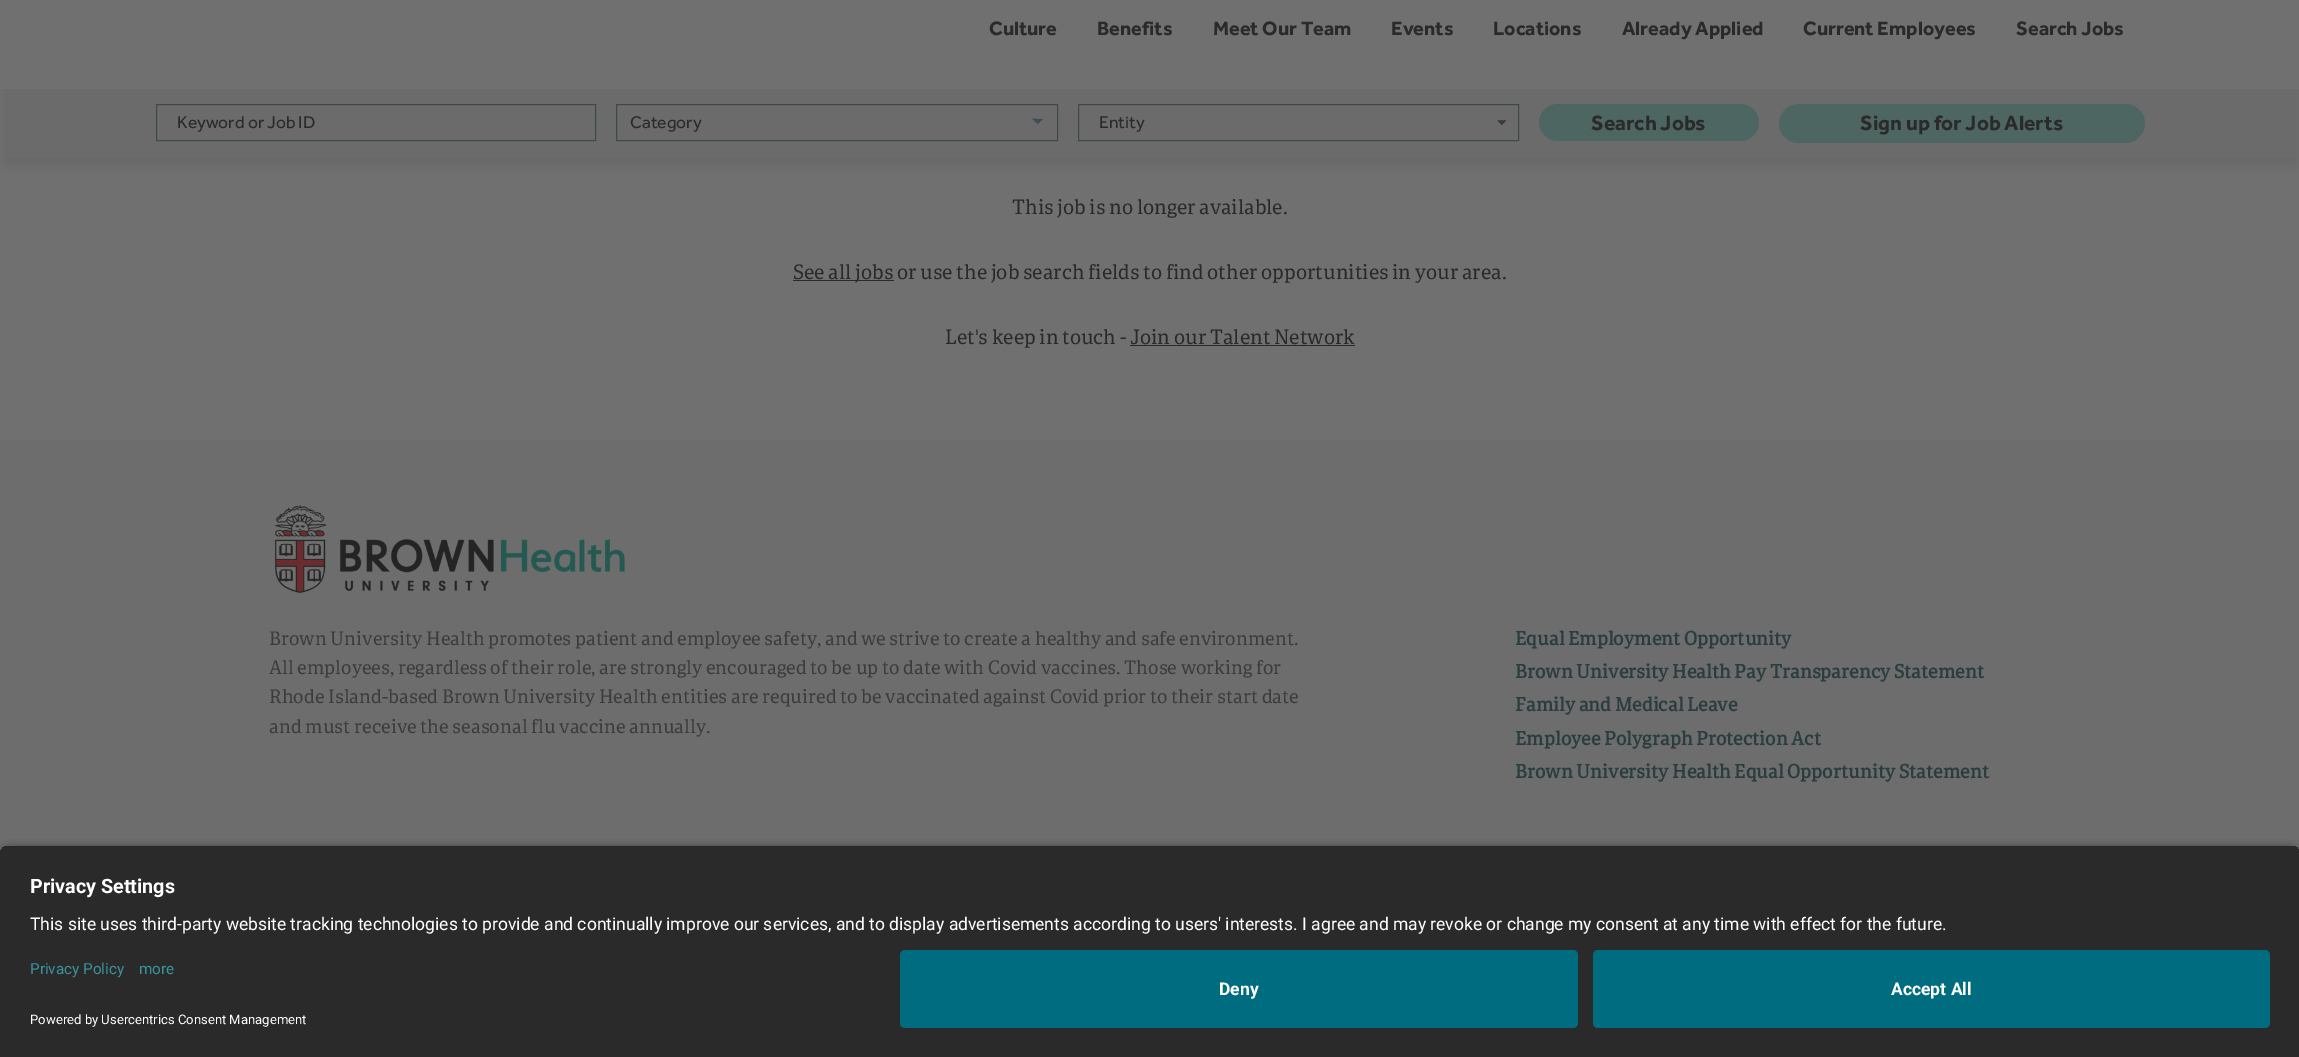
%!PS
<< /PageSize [2299 1057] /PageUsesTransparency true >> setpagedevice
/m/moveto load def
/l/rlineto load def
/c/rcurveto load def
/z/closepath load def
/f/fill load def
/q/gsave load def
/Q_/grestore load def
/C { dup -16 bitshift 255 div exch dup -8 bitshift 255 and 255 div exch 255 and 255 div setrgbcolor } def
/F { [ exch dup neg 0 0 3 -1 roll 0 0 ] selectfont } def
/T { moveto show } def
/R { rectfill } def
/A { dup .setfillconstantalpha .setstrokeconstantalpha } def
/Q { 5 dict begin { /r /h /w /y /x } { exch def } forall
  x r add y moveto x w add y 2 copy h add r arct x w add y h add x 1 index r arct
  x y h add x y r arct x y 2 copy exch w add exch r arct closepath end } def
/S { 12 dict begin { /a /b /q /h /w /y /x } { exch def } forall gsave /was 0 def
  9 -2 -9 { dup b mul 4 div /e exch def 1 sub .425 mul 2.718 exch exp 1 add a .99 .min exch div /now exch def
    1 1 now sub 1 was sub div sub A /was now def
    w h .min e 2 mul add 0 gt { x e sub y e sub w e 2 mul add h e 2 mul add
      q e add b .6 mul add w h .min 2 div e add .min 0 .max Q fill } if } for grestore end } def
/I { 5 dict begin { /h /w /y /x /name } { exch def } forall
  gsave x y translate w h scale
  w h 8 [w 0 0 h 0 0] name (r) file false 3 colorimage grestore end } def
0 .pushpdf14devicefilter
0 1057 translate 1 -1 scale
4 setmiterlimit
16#707070 C
0 0 2299 1057 R
16#545454 C
4 -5 2294 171 0 6.5 .36 S
16#707070 C
0 0 2299 89 R
/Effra-Bold 20 F
16#2A2A2A C
(Culture) 989 35 T
(Benefits) 1097 35 T
(Meet Our Team) 1213 35 T
(Events) 1391 35 T
(Locations) 1493 35 T
(Already Applied) 1622 35 T
(Current Employees) 1803 35 T
(Search Jobs) 2016 35 T
16#6C6B6B C
7 89 2288 69 R
16#3E494C C
156.5 104.5 439 36 rectstroke
/Effra-Regular 17.5 F
16#2A2A2A C
(Keyword or Job ID) 177 128 T
16#3E494C C
616.5 104.5 441 36 rectstroke
16#2A2A2A C
(Category) 630 128 T
16#355052 C
1043 119 m -5.5 5 l 0 -5 l z f
1037.5 124 m -5.5 -5.5 l 5.5 .5 l z f
16#3E494C C
1078.5 104.5 440 36 rectstroke
16#2A2A2A C
(Entity) 1099 128 T
(1.rgb) 1497 120 9 5 I
16#4E6661 C
1539 104 220 37 18.5 Q f
/Effra-Bold 21.25 F
16#2A2A2A C
(Search Jobs) 1591 130 T
16#4E6661 C
1779 104 366 39 19.5 Q f
16#2A2A2A C
(Sign up for Job Alerts) 1860 130 T
/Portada-Regular 20 F
(This job is no longer available.) 1012 214 T
793 280 101 1 R
(See all jobs or use the job search fields to find other opportunities in your area.) 793 279 T
(Let's keep in touch - Join our Talent Network) 945 344 T
1130 345 225 1 R
16#6D6D6D C
0 440 2299 415 R
(2.rgb) 274 505 351 88 I
/Portada-Regular 18.75 F
16#3C3C3C C
(Brown University Health promotes patient and employee safety, and we strive to create a healthy and safe environment.) 269 645 T
(All employees, regardless of their role, are strongly encouraged to be up to date with Covid vaccines. Those working for) 269 674 T
(Rhode Island-based Brown University Health entities are required to be vaccinated against Covid prior to their start date) 269 703 T
(and must receive the seasonal flu vaccine annually.) 269 733 T
/Portada-Bold 18.75 F
16#2B3D3F C
(Equal Employment Opportunity) 1515 645 T
(Brown University Health Pay Transparency Statement) 1515 678 T
(Family and Medical Leave) 1515 711 T
(Employee Polygraph Protection Act) 1515 745 T
(Brown University Health Equal Opportunity Statement) 1515 778 T
16#000000 C
0 849 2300 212 10 4.5 .8 S
q
10 845 m 2280 0 l 5.5 0 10 4.5 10 10 c 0 85 l -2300 0 l 0 -85 l 0 -5.5 4.5 -10 10 -10 c z clip newpath
16#2A2A2A C
0 846 2299 94 R
Q_
/Roboto-Bold 19.75 F
16#FFFFFF C
(Privacy Settings) 30 893 T
/Roboto-Regular 17.5 F
(This site uses third-party website tracking technologies to provide and continually improve our services, and to display advertisements according to users' interests. I agree and may revoke or change my consent at any time with effect for the future.) 30 930 T
16#2A2A2A C
0 940 2299 117 R
/Roboto-Regular 15.25 F
16#38939B C
(Privacy Policy) 30 974 T
(more) 139 974 T
/Roboto-Regular 13.1 F
16#FFFFFF C
(Powered by Usercentrics Consent Management) 30 1024 T
16#006C80 C
900 950 678 78 5 Q f
/Roboto-Bold 17.5 F
16#FFFFFF C
(Deny) 1219 995 T
16#006C80 C
1593 950 677 78 5 Q f
16#FFFFFF C
(Accept All) 1891 995 T
.poppdf14devicefilter showpage
